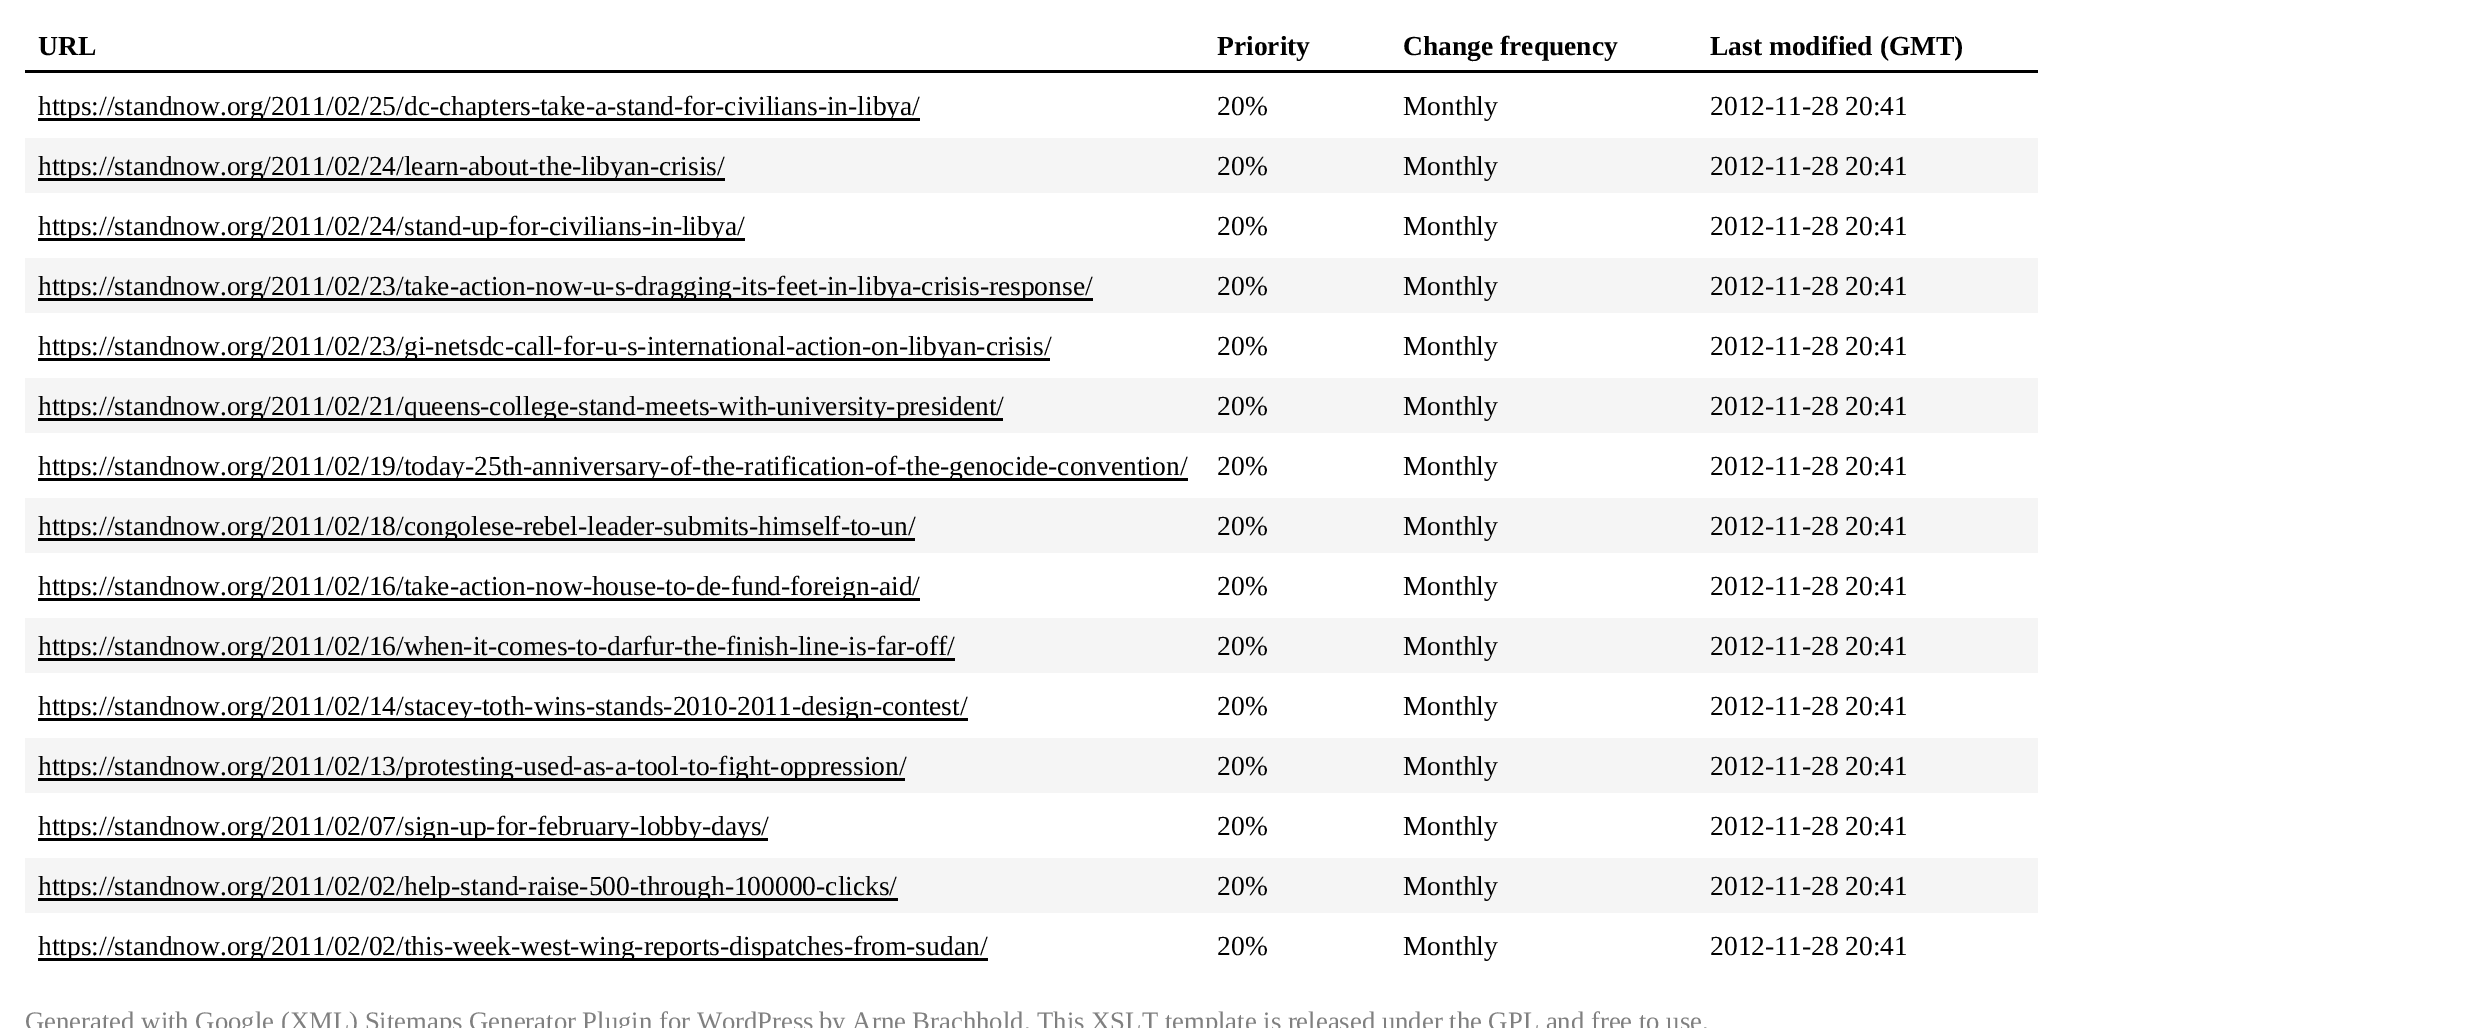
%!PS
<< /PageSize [2491 1028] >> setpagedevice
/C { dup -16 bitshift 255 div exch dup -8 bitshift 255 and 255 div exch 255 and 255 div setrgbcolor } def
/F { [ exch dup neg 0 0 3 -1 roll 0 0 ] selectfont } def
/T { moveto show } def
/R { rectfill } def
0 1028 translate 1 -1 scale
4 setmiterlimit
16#FFFFFF C
0 0 2491 1028 R
16#000000 C
25 70 2013 3 R
/LiberationSerif-Bold 27.5 F
(URL) 38 55 T
(Priority) 1217 55 T
(Change frequency) 1403 55 T
(Last modified \(GMT\)) 1710 55 T
38 118 882 3 R
/LiberationSerif-Regular 27.5 F
(https://standnow.org/2011/02/25/dc-chapters-take-a-stand-for-civilians-in-libya/) 38 115 T
(20%) 1217 115 T
(Monthly) 1403 115 T
(2012-11-28 20:41) 1710 115 T
16#F5F5F5 C
25 138 2013 55 R
16#000000 C
38 178 687 3 R
(https://standnow.org/2011/02/24/learn-about-the-libyan-crisis/) 38 175 T
(20%) 1217 175 T
(Monthly) 1403 175 T
(2012-11-28 20:41) 1710 175 T
38 238 707 3 R
(https://standnow.org/2011/02/24/stand-up-for-civilians-in-libya/) 38 235 T
(20%) 1217 235 T
(Monthly) 1403 235 T
(2012-11-28 20:41) 1710 235 T
16#F5F5F5 C
25 258 2013 55 R
16#000000 C
38 298 1055 3 R
(https://standnow.org/2011/02/23/take-action-now-u-s-dragging-its-feet-in-libya-crisis-response/) 38 295 T
(20%) 1217 295 T
(Monthly) 1403 295 T
(2012-11-28 20:41) 1710 295 T
38 358 1012 3 R
(https://standnow.org/2011/02/23/gi-netsdc-call-for-u-s-international-action-on-libyan-crisis/) 38 355 T
(20%) 1217 355 T
(Monthly) 1403 355 T
(2012-11-28 20:41) 1710 355 T
16#F5F5F5 C
25 378 2013 55 R
16#000000 C
38 418 965 3 R
(https://standnow.org/2011/02/21/queens-college-stand-meets-with-university-president/) 38 415 T
(20%) 1217 415 T
(Monthly) 1403 415 T
(2012-11-28 20:41) 1710 415 T
38 478 1150 3 R
(https://standnow.org/2011/02/19/today-25th-anniversary-of-the-ratification-of-the-genocide-convention/) 38 475 T
(20%) 1217 475 T
(Monthly) 1403 475 T
(2012-11-28 20:41) 1710 475 T
16#F5F5F5 C
25 498 2013 55 R
16#000000 C
38 538 877 3 R
(https://standnow.org/2011/02/18/congolese-rebel-leader-submits-himself-to-un/) 38 535 T
(20%) 1217 535 T
(Monthly) 1403 535 T
(2012-11-28 20:41) 1710 535 T
38 598 882 3 R
(https://standnow.org/2011/02/16/take-action-now-house-to-de-fund-foreign-aid/) 38 595 T
(20%) 1217 595 T
(Monthly) 1403 595 T
(2012-11-28 20:41) 1710 595 T
16#F5F5F5 C
25 618 2013 55 R
16#000000 C
38 658 917 3 R
(https://standnow.org/2011/02/16/when-it-comes-to-darfur-the-finish-line-is-far-off/) 38 655 T
(20%) 1217 655 T
(Monthly) 1403 655 T
(2012-11-28 20:41) 1710 655 T
38 718 930 3 R
(https://standnow.org/2011/02/14/stacey-toth-wins-stands-2010-2011-design-contest/) 38 715 T
(20%) 1217 715 T
(Monthly) 1403 715 T
(2012-11-28 20:41) 1710 715 T
16#F5F5F5 C
25 738 2013 55 R
16#000000 C
38 778 867 3 R
(https://standnow.org/2011/02/13/protesting-used-as-a-tool-to-fight-oppression/) 38 775 T
(20%) 1217 775 T
(Monthly) 1403 775 T
(2012-11-28 20:41) 1710 775 T
38 838 730 3 R
(https://standnow.org/2011/02/07/sign-up-for-february-lobby-days/) 38 835 T
(20%) 1217 835 T
(Monthly) 1403 835 T
(2012-11-28 20:41) 1710 835 T
16#F5F5F5 C
25 858 2013 55 R
16#000000 C
38 898 860 3 R
(https://standnow.org/2011/02/02/help-stand-raise-500-through-100000-clicks/) 38 895 T
(20%) 1217 895 T
(Monthly) 1403 895 T
(2012-11-28 20:41) 1710 895 T
38 958 950 3 R
(https://standnow.org/2011/02/02/this-week-west-wing-reports-dispatches-from-sudan/) 38 955 T
(20%) 1217 955 T
(Monthly) 1403 955 T
(2012-11-28 20:41) 1710 955 T
/LiberationSerif-Regular 26.7 F
16#808080 C
(Generated with Google \(XML\) Sitemaps Generator Plugin for WordPress) 25 1030 T
(by Arne Brachhold. This XSLT template is released under the GPL and free to use.) 819 1030 T
showpage
